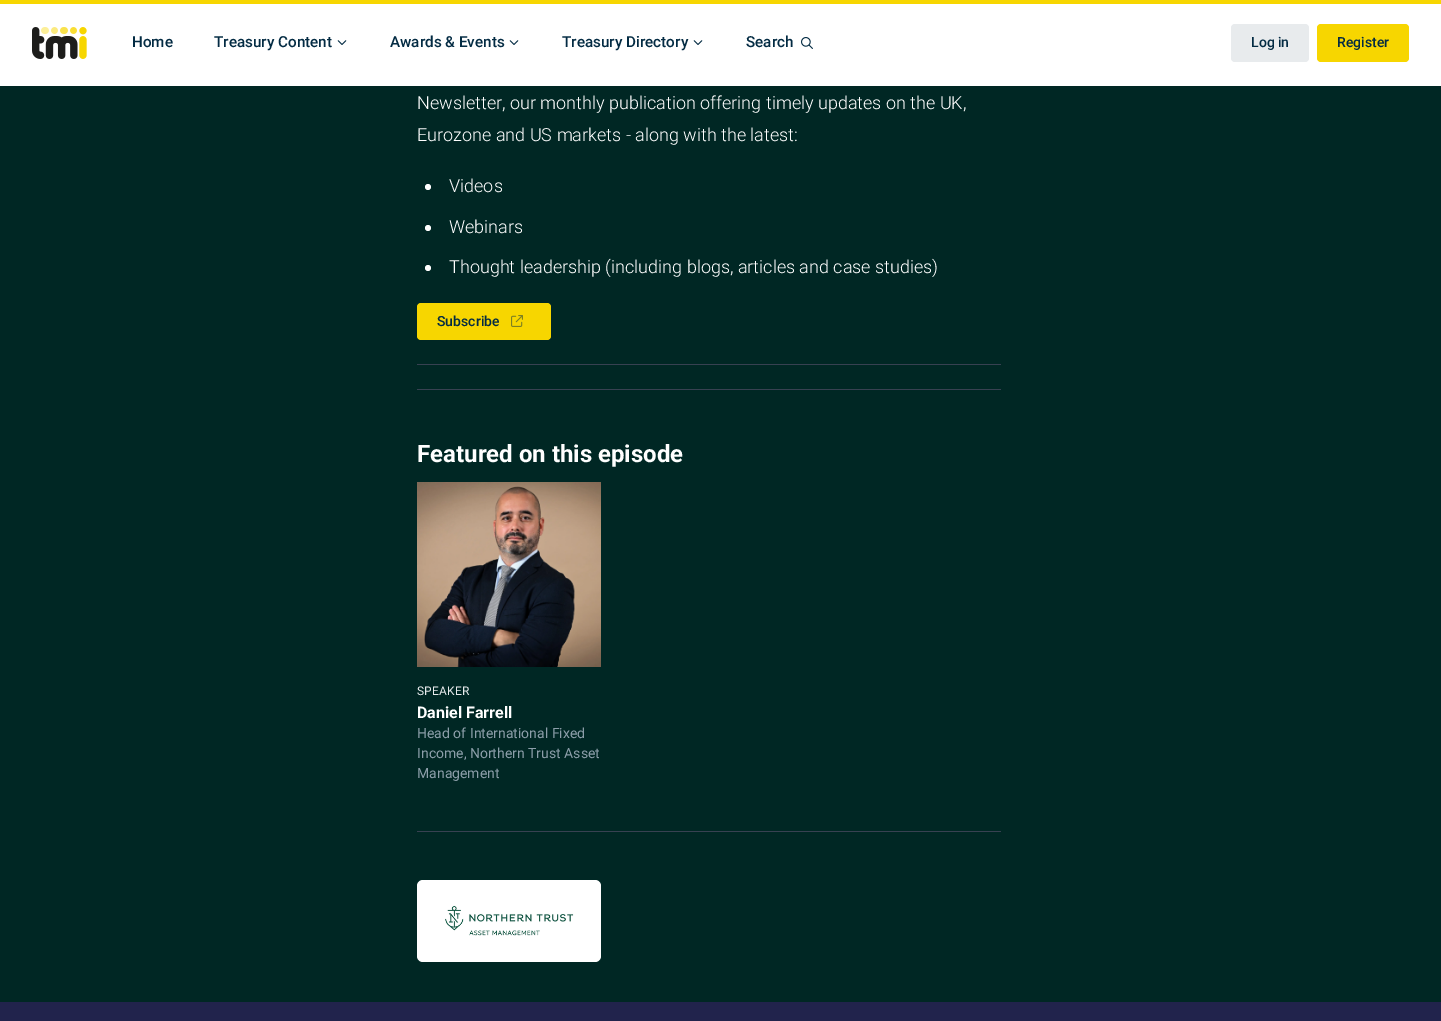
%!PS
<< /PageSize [1441 1021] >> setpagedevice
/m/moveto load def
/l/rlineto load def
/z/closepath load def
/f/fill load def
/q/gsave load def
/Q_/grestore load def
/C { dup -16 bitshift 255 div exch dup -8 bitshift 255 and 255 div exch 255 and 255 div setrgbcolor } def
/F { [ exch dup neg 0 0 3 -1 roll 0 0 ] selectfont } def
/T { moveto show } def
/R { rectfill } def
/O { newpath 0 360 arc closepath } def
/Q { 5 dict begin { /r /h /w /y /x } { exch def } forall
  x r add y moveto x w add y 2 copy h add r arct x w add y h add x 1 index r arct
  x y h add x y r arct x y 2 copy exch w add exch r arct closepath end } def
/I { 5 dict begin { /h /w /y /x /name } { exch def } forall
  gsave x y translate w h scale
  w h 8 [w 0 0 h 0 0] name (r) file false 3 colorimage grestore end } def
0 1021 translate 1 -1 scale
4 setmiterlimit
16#002724 C
0 0 1441 1021 R
16#FFFFFF C
0 4 1441 82 R
16#F7D600 C
0 0 1441 4 R
(1.rgb) 32 27 55 32 I
/Roboto-Medium 15.25 F
16#032B43 C
(Home) 132 47 T
(Treasury Content) 214 47 T
(2.rgb) 337 40 10 5 I
(Awards & Events) 390 47 T
(2.rgb) 509 40 10 5 I
(Treasury Directory) 562 47 T
(2.rgb) 693 40 10 5 I
(Search) 746 47 T
(3.rgb) 801 37 12 12 I
16#E8EBED C
1231 24 78 38 4 Q f
/Roboto-Medium 14 F
16#032B43 C
(Log in) 1251 47 T
16#F7D600 C
1317 24 92 38 4 Q f
16#032B43 C
(Register) 1337 47 T
/Roboto-Light 18 F
16#FFFFFF C
(Newsletter, our monthly publication offering timely updates on the UK,) 417 109 T
(Eurozone and US markets - along with the latest:) 417 141 T
428 187 3 O f
(Videos) 449 192 T
428 228 3 O f
(Webinars) 449 233 T
428 268 3 O f
(Thought leadership \(including blogs, articles and case studies\)) 449 273 T
16#F7D600 C
417 303 134 37 4 Q f
/Roboto-Medium 14 F
16#032B43 C
(Subscribe) 437 326 T
(4.rgb) 511 315 12 12 I
16#374151 C
417 364 584 1 R
417 389 584 1 R
/Roboto-Bold 24 F
16#FFFFFF C
(Featured on this episode) 417 462 T
(5.rgb) 417 482 184 185 I
/Roboto-Regular 12 F
16#E8EBED C
417 695 m .25 0 (SPEAKER) ashow
/Roboto-Bold 16 F
16#FFFFFF C
(Daniel Farrell) 417 718 T
/Roboto-Regular 14 F
16#8C9EA9 C
(Head of International Fixed) 417 738 T
(Income, Northern Trust Asset) 417 758 T
(Management) 417 778 T
16#374151 C
417 831 584 1 R
16#FFFFFF C
417 880 184 82 6 Q f
(6.rgb) 445 905 129 31 I
q 0 1002 m 1441 0 l 0 19 l -1441 0 l z clip newpath
<< /ShadingType 2 /ColorSpace /DeviceRGB /Coords [721 1002 721 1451] /Extend [true true] /Function << /FunctionType 2 /Domain [0 1] /C0 [.133 .141 .302] /C1 [.012 .02 .18] /N 1 >> >> shfill Q_
showpage
